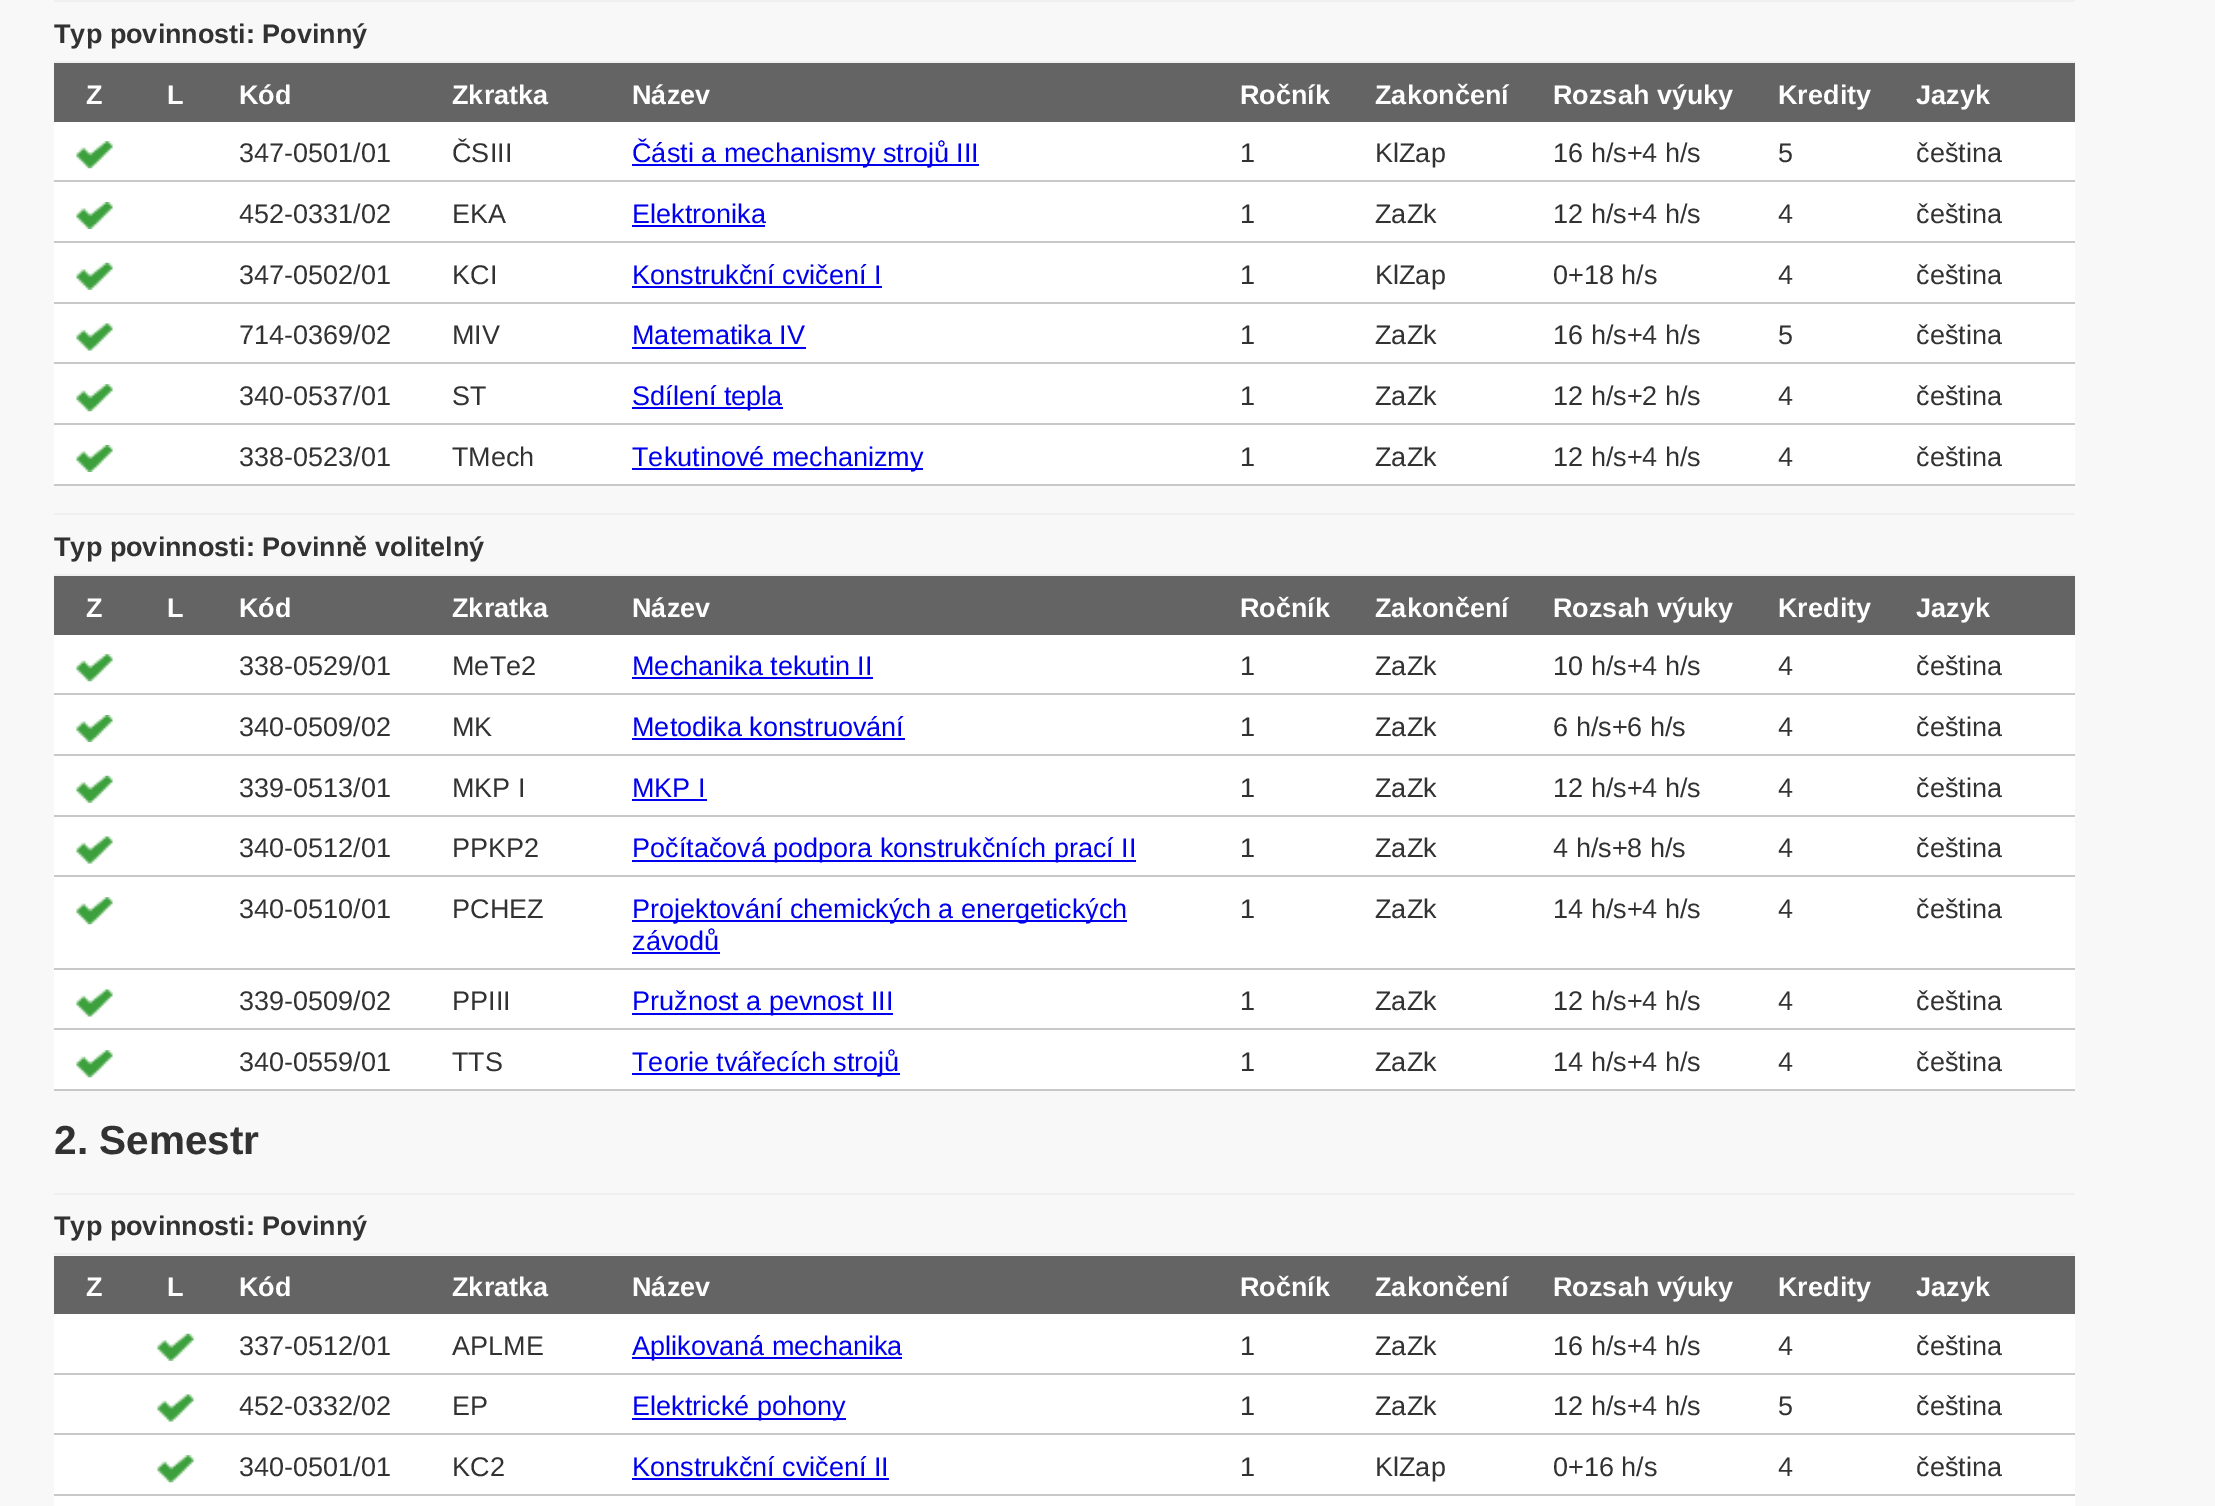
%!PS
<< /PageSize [2215 1506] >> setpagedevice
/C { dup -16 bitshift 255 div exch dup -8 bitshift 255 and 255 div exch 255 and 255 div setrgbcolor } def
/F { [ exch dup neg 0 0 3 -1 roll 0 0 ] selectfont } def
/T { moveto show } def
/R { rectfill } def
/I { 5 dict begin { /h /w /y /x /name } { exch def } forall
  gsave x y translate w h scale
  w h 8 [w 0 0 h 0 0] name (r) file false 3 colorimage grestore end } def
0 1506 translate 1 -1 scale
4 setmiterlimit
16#F8F8F8 C
0 0 2215 1506 R
16#F0F0F0 C
54 0 2021 2 R
/LiberationSans-Bold 27 F
16#323232 C
(Typ povinnosti: Povinný) 54 43 T
16#F0F0F0 C
54 61 2021 2 R
16#646464 C
54 63 2021 59 R
16#FFFFFF C
(Z) 86 104 T
(L) 167 104 T
(Kód) 239 104 T
(Zkratka) 452 104 T
(Název) 632 104 T
(Ročník) 1240 104 T
(Zakončení) 1375 104 T
(Rozsah výuky) 1553 104 T
(Kredity) 1778 104 T
(Jazyk) 1916 104 T
54 122 2021 58 R
(1.rgb) 76 141 37 28 I
/LiberationSans-Regular 27 F
16#323232 C
(347-0501/01) 239 162 T
(ČSIII) 452 162 T
16#0000EE C
632 164 347 2 R
(Části a mechanismy strojů III) 632 162 T
16#323232 C
(1) 1240 162 T
(KlZap) 1375 162 T
(16 h/s+4 h/s) 1553 162 T
(5) 1778 162 T
16#C8C8C8 C
54 180 2021 2 R
16#323232 C
(čeština) 1916 162 T
16#FFFFFF C
54 182 2021 59 R
(2.rgb) 76 202 37 27 I
16#323232 C
(452-0331/02) 239 223 T
(EKA) 452 223 T
16#0000EE C
(Elektronika) 632 223 T
632 225 133 2 R
16#323232 C
(1) 1240 223 T
(ZaZk) 1375 223 T
(12 h/s+4 h/s) 1553 223 T
(4) 1778 223 T
16#C8C8C8 C
54 241 2021 2 R
16#323232 C
(čeština) 1916 223 T
16#FFFFFF C
54 243 2021 59 R
(3.rgb) 76 262 37 28 I
16#323232 C
(347-0502/01) 239 284 T
(KCI) 452 284 T
16#0000EE C
(Konstrukční cvičení I) 632 284 T
632 286 250 2 R
16#323232 C
(1) 1240 284 T
(KlZap) 1375 284 T
(0+18 h/s) 1553 284 T
(4) 1778 284 T
16#C8C8C8 C
54 302 2021 2 R
16#323232 C
(čeština) 1916 284 T
16#FFFFFF C
54 304 2021 119 R
(4.rgb) 76 323 37 28 I
16#323232 C
(714-0369/02) 239 344 T
(MIV) 452 344 T
16#0000EE C
(Matematika IV) 632 344 T
632 347 174 2 R
16#323232 C
(1) 1240 344 T
(ZaZk) 1375 344 T
(16 h/s+4 h/s) 1553 344 T
(5) 1778 344 T
16#C8C8C8 C
54 362 2021 2 R
16#323232 C
(čeština) 1916 344 T
(1.rgb) 76 384 37 28 I
(340-0537/01) 239 405 T
(ST) 452 405 T
16#0000EE C
632 407 151 2 R
(Sdílení tepla) 632 405 T
16#323232 C
(1) 1240 405 T
(ZaZk) 1375 405 T
(12 h/s+2 h/s) 1553 405 T
(4) 1778 405 T
16#C8C8C8 C
54 423 2021 2 R
16#323232 C
(čeština) 1916 405 T
16#FFFFFF C
54 425 2021 59 R
(2.rgb) 76 445 37 27 I
16#323232 C
(338-0523/01) 239 466 T
(TMech) 452 466 T
16#0000EE C
632 468 291 2 R
(Tekutinové mechanizmy) 632 466 T
16#323232 C
(1) 1240 466 T
(ZaZk) 1375 466 T
(12 h/s+4 h/s) 1553 466 T
(4) 1778 466 T
16#C8C8C8 C
54 484 2021 2 R
16#323232 C
(čeština) 1916 466 T
16#F0F0F0 C
54 513 2021 2 R
/LiberationSans-Bold 27 F
16#323232 C
(Typ povinnosti: Povinně volitelný) 54 556 T
16#F0F0F0 C
54 574 2021 2 R
16#646464 C
54 576 2021 59 R
16#FFFFFF C
(Z) 86 617 T
(L) 167 617 T
(Kód) 239 617 T
(Zkratka) 452 617 T
(Název) 632 617 T
(Ročník) 1240 617 T
(Zakončení) 1375 617 T
(Rozsah výuky) 1553 617 T
(Kredity) 1778 617 T
(Jazyk) 1916 617 T
54 635 2021 58 R
(1.rgb) 76 654 37 28 I
/LiberationSans-Regular 27 F
16#323232 C
(338-0529/01) 239 675 T
(MeTe2) 452 675 T
16#0000EE C
(Mechanika tekutin II) 632 675 T
632 677 241 2 R
16#323232 C
(1) 1240 675 T
(ZaZk) 1375 675 T
(10 h/s+4 h/s) 1553 675 T
(4) 1778 675 T
16#C8C8C8 C
54 693 2021 2 R
16#323232 C
(čeština) 1916 675 T
16#FFFFFF C
54 695 2021 59 R
(2.rgb) 76 715 37 27 I
16#323232 C
(340-0509/02) 239 736 T
(MK) 452 736 T
16#0000EE C
(Metodika konstruování) 632 736 T
632 738 273 2 R
16#323232 C
(1) 1240 736 T
(ZaZk) 1375 736 T
(6 h/s+6 h/s) 1553 736 T
(4) 1778 736 T
16#C8C8C8 C
54 754 2021 2 R
16#323232 C
(čeština) 1916 736 T
16#FFFFFF C
54 756 2021 59 R
(3.rgb) 76 775 37 28 I
16#323232 C
(339-0513/01) 239 797 T
(MKP I) 452 797 T
16#0000EE C
(MKP I) 632 797 T
632 799 75 2 R
16#323232 C
(1) 1240 797 T
(ZaZk) 1375 797 T
(12 h/s+4 h/s) 1553 797 T
(4) 1778 797 T
16#C8C8C8 C
54 815 2021 2 R
16#323232 C
(čeština) 1916 797 T
16#FFFFFF C
54 817 2021 151 R
(4.rgb) 76 836 37 28 I
16#323232 C
(340-0512/01) 239 857 T
(PPKP2) 452 857 T
16#0000EE C
632 860 504 2 R
(Počítačová podpora konstrukčních prací II) 632 857 T
16#323232 C
(1) 1240 857 T
(ZaZk) 1375 857 T
(4 h/s+8 h/s) 1553 857 T
(4) 1778 857 T
16#C8C8C8 C
54 875 2021 2 R
16#323232 C
(čeština) 1916 857 T
(1.rgb) 76 897 37 28 I
(340-0510/01) 239 918 T
(PCHEZ) 452 918 T
16#0000EE C
632 920 495 2 R
(Projektování chemických a energetických) 632 918 T
(závodů) 632 950 T
632 952 88 2 R
16#323232 C
(1) 1240 918 T
(ZaZk) 1375 918 T
(14 h/s+4 h/s) 1553 918 T
(4) 1778 918 T
16#C8C8C8 C
54 968 2021 2 R
16#323232 C
(čeština) 1916 918 T
16#FFFFFF C
54 970 2021 119 R
(4.rgb) 76 989 37 28 I
16#323232 C
(339-0509/02) 239 1010 T
(PPIII) 452 1010 T
16#0000EE C
632 1013 261 2 R
(Pružnost a pevnost III) 632 1010 T
16#323232 C
(1) 1240 1010 T
(ZaZk) 1375 1010 T
(12 h/s+4 h/s) 1553 1010 T
(4) 1778 1010 T
16#C8C8C8 C
54 1028 2021 2 R
16#323232 C
(čeština) 1916 1010 T
(1.rgb) 76 1050 37 28 I
(340-0559/01) 239 1071 T
(TTS) 452 1071 T
16#0000EE C
632 1073 268 2 R
(Teorie tvářecích strojů) 632 1071 T
16#323232 C
(1) 1240 1071 T
(ZaZk) 1375 1071 T
(14 h/s+4 h/s) 1553 1071 T
(4) 1778 1071 T
16#C8C8C8 C
54 1089 2021 2 R
16#323232 C
(čeština) 1916 1071 T
/LiberationSans-Bold 40.5 F
(2. Semestr) 54 1154 T
16#F0F0F0 C
54 1193 2021 2 R
/LiberationSans-Bold 27 F
16#323232 C
(Typ povinnosti: Povinný) 54 1235 T
16#F0F0F0 C
54 1253 2021 2 R
16#646464 C
54 1256 2021 58 R
16#FFFFFF C
(Z) 86 1296 T
(L) 167 1296 T
(Kód) 239 1296 T
(Zkratka) 452 1296 T
(Název) 632 1296 T
(Ročník) 1240 1296 T
(Zakončení) 1375 1296 T
(Rozsah výuky) 1553 1296 T
(Kredity) 1778 1296 T
(Jazyk) 1916 1296 T
54 1314 2021 59 R
(5.rgb) 157 1333 37 28 I
/LiberationSans-Regular 27 F
16#323232 C
(337-0512/01) 239 1355 T
(APLME) 452 1355 T
16#0000EE C
632 1357 270 2 R
(Aplikovaná mechanika) 632 1355 T
16#323232 C
(1) 1240 1355 T
(ZaZk) 1375 1355 T
(16 h/s+4 h/s) 1553 1355 T
(4) 1778 1355 T
16#C8C8C8 C
54 1373 2021 2 R
16#323232 C
(čeština) 1916 1355 T
16#FFFFFF C
54 1375 2021 119 R
(6.rgb) 157 1394 37 28 I
16#323232 C
(452-0332/02) 239 1415 T
(EP) 452 1415 T
16#0000EE C
632 1418 214 2 R
(Elektrické pohony) 632 1415 T
16#323232 C
(1) 1240 1415 T
(ZaZk) 1375 1415 T
(12 h/s+4 h/s) 1553 1415 T
(5) 1778 1415 T
16#C8C8C8 C
54 1433 2021 2 R
16#323232 C
(čeština) 1916 1415 T
(7.rgb) 157 1455 37 28 I
(340-0501/01) 239 1476 T
(KC2) 452 1476 T
16#0000EE C
(Konstrukční cvičení II) 632 1476 T
632 1478 257 2 R
16#323232 C
(1) 1240 1476 T
(KlZap) 1375 1476 T
(0+16 h/s) 1553 1476 T
(4) 1778 1476 T
16#C8C8C8 C
54 1494 2021 2 R
16#323232 C
(čeština) 1916 1476 T
16#FFFFFF C
54 1496 2021 10 R
showpage
